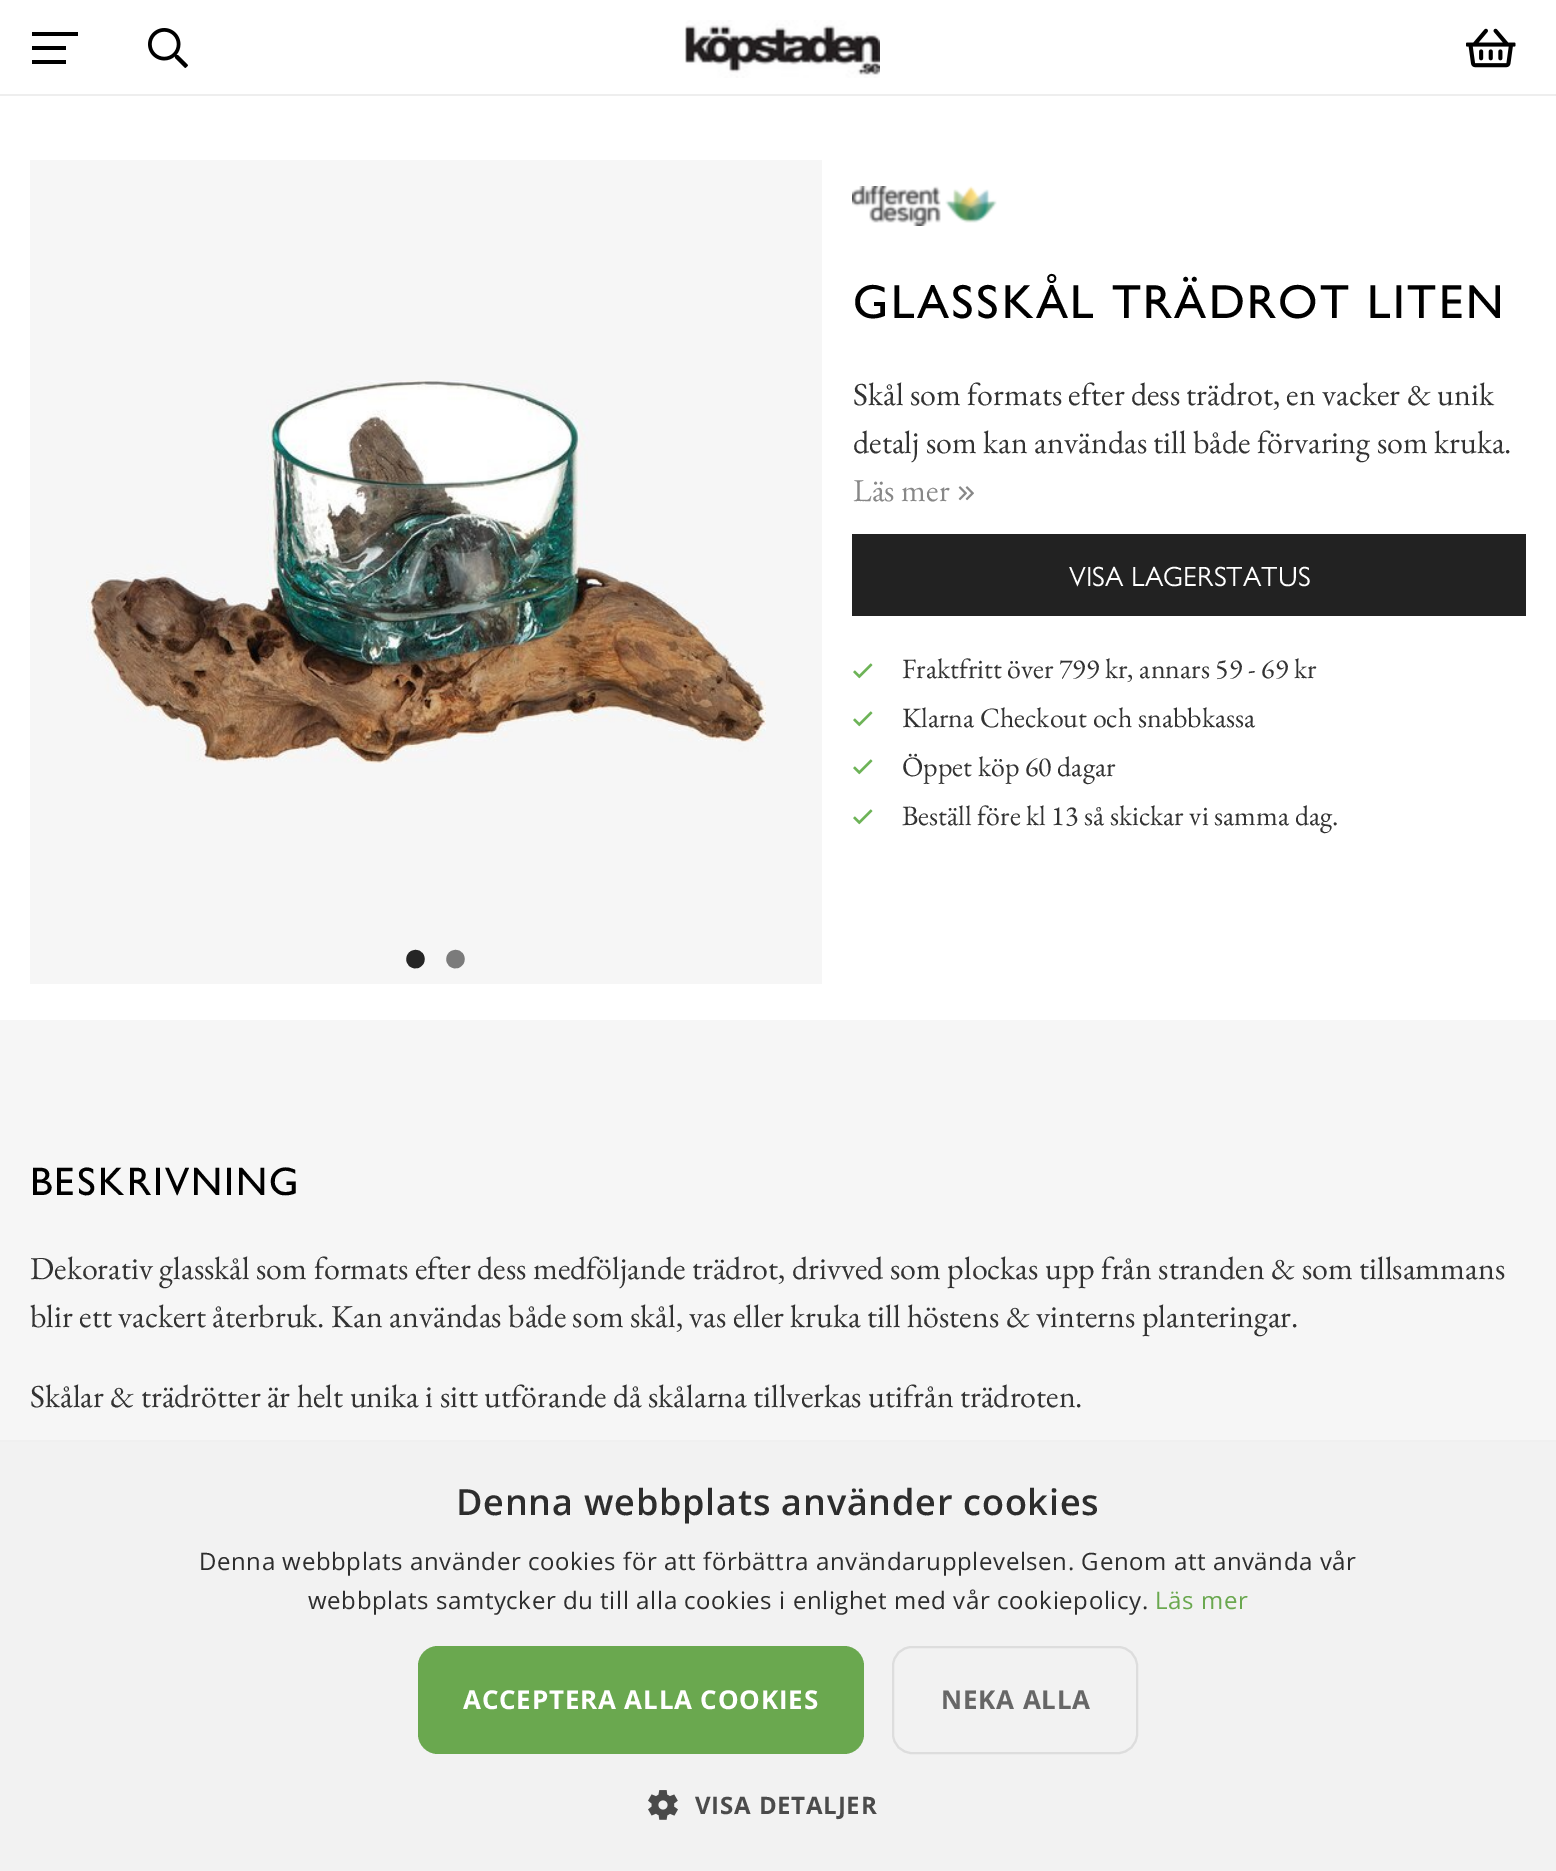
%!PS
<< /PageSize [1556 1871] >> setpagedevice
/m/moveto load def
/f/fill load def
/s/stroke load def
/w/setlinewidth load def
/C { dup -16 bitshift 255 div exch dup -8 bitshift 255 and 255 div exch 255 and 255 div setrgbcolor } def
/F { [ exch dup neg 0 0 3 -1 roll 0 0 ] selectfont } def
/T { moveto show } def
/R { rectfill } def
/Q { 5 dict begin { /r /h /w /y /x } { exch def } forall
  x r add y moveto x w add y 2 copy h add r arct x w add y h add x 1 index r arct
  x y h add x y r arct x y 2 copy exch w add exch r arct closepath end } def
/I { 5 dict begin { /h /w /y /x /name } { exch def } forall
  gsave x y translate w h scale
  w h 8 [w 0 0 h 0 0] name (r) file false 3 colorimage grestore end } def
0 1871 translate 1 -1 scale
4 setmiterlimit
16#FFFFFF C
0 0 1556 1871 R
16#EEEEEE C
0 94 1556 2 R
16#000000 C
32 46 34 4 R
32 32 46 4 R
32 60 34 4 R
(1.rgb) 148 28 40 40 I
(2.rgb) 685 20 195 58 I
(3.rgb) 1466 28 50 40 I
(4.rgb) 852 186 145 40 I
/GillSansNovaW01-Medium 48 F
853 318 m 2.4 0 (GLASSKÅL TRÄDROT LITEN) ashow
/EBGaramond-Regular 32 F
16#333333 C
(Skål som formats efter dess trädrot, en vacker & unik) 853 405 T
(detalj som kan användas till både förvaring som kruka.) 853 453 T
16#888888 C
(Läs mer) 853 501 T
(5.rgb) 958 486 16 15 I
16#222222 C
852 534 674 82 R
/GillSansNovaW01-Regular 28 F
16#FFFFFF C
(VISA LAGERSTATUS) 1069 586 T
(6.rgb) 853 663 20 16 I
/EBGaramond-Regular 28 F
16#333333 C
(Fraktfritt över 799 kr, annars 59 - 69 kr) 902 678 T
(6.rgb) 853 711 20 16 I
(Klarna Checkout och snabbkassa) 902 727 T
(6.rgb) 853 759 20 16 I
(Öppet köp 60 dagar) 902 776 T
(6.rgb) 853 809 20 16 I
(Beställ före kl 13 så skickar vi samma dag.) 902 825 T
16#F6F6F6 C
30 160 792 824 R
(7.rgb) 86 380 680 384 I
/EBGaramond-Regular 72 F
16#252525 C
(•) 403 985 T
16#7B7B7B C
(•) 443 985 T
16#F6F6F6 C
0 1020 1556 420 R
/GillSansNovaW01-Medium 40 F
16#000000 C
30 1195 m 2 0 (BESKRIVNING) ashow
/EBGaramond-Regular 32 F
16#333333 C
(Dekorativ glasskål som formats efter dess medföljande trädrot, drivved som plockas upp från stranden & som tillsammans) 30 1279 T
(blir ett vackert återbruk. Kan användas både som skål, vas eller kruka till höstens & vinterns planteringar.) 30 1327 T
(Skålar & trädrötter är helt unika i sitt utförande då skålarna tillverkas utifrån trädroten.) 30 1407 T
16#F2F2F2 C
0 1442 1556 429 R
16#F0F0F0 C
0 1440 1556 2 R
/OpenSans-SemiBold 36 F
16#2D2D2D C
456 1515 m .8 0 (Denna webbplats använder cookies) ashow
/OpenSans-Regular 24 F
199 1570 m .6 0 (Denna webbplats använder cookies för att förbättra användarupplevelsen. Genom att använda vår) ashow
308 1609 m .6 0 (webbplats samtycker du till alla cookies i enlighet med vår cookiepolicy.) ashow
16#6AA84F C
1155 1609 m .6 0 (Läs mer) ashow
418 1646 446 108 20 Q f
/OpenSans-Bold 26 F
16#FFFFFF C
463 1709 m .8 0 (ACCEPTERA ALLA COOKIES) ashow
16#DDDDDD C
2 w
893 1647 244 106 19 Q s
16#666666 C
941 1709 m .8 0 (NEKA ALLA) ashow
(8.rgb) 648 1790 30 30 I
/OpenSans-Bold 24 F
16#4B4B4B C
695 1814 m .8 0 (VISA DETALJER) ashow
showpage
